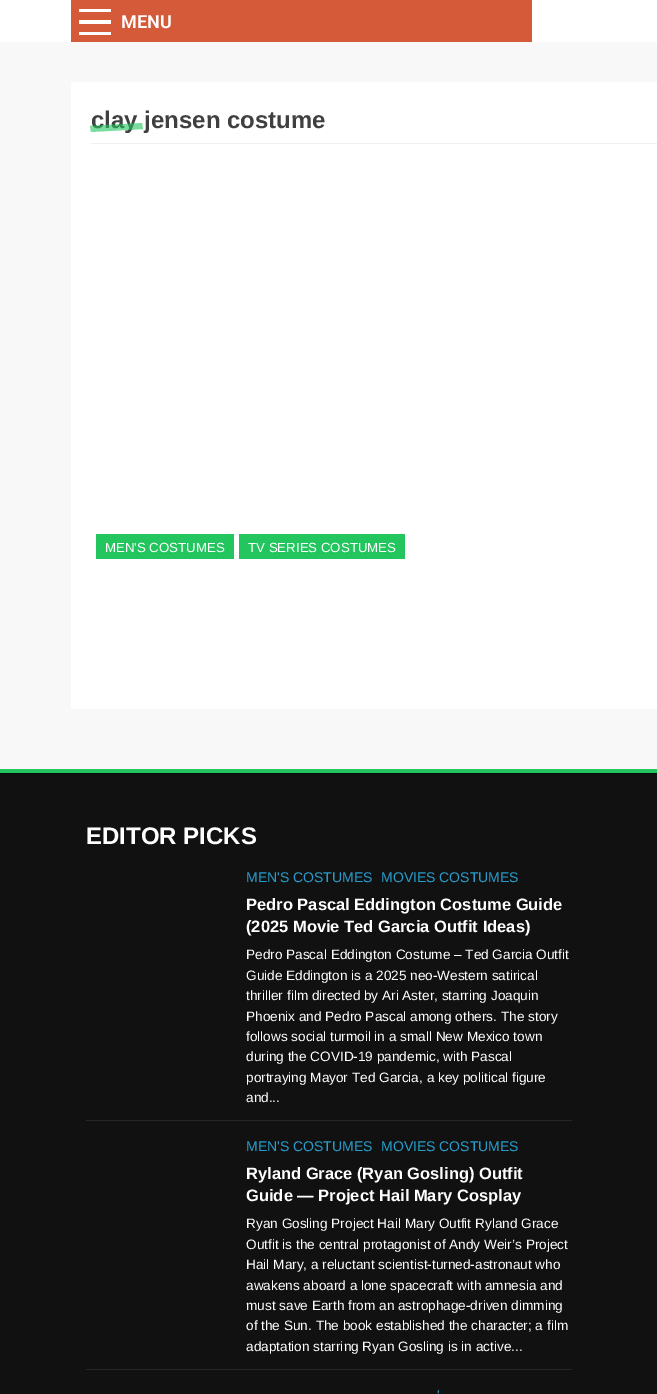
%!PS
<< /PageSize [657 1394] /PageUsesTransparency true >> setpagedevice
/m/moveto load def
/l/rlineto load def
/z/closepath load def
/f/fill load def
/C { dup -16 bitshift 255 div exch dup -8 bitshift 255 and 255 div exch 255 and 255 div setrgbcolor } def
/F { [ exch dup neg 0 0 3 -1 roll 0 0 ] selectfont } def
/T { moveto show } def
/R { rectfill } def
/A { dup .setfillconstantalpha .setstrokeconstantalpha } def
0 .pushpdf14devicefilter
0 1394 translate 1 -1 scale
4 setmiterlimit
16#F8F8F8 C
0 0 657 1394 R
16#111111 C
0 774 657 620 R
16#FFFFFF C
0 0 657 42 R
16#D55A39 C
71 0 461 42 R
16#FFFFFF C
79 9 32 3 R
79 20 32 4 R
79 32 32 3 R
/Roboto-SemiBold 18 F
(MENU) 121 28 T
71 82 586 627 R
16#F0F0F0 C
91 143 566 1 R
/LiberationSans-Bold 24 F
16#404040 C
(clay jensen costume) 91 128 T
0.6 A
16#22C55E C
90 126 m 52 -3 l 1 6 l -52 3 l z f
1 A
96 534 138 25 R
/LiberationSans-Regular 13.25 F
16#FFFFFF C
(MEN'S COSTUMES) 105 552 T
16#22C55E C
239 534 166 25 R
16#FFFFFF C
(TV SERIES COSTUMES) 248 552 T
16#22C55E C
0 769 657 4 R
16#020E07 C
0 773 657 1 R
/LiberationSans-Bold 24 F
16#FFFFFF C
(EDITOR PICKS) 86 844 T
16#272727 C
86 1120 486 1 R
/LiberationSans-Regular 14 F
16#289DCC C
(MEN'S COSTUMES) 246 882 T
(MOVIES COSTUMES) 381 882 T
/LiberationSans-Bold 16.5 F
16#FFFFFF C
(Pedro Pascal Eddington Costume Guide) 246 910 T
(\(2025 Movie Ted Garcia Outfit Ideas\)) 246 932 T
/LiberationSans-Regular 13.6 F
(Pedro Pascal Eddington Costume – Ted Garcia Outfit) 246 959 T
(Guide Eddington is a 2025 neo-Western satirical) 246 980 T
(thriller film directed by Ari Aster, starring Joaquin) 246 1000 T
(Phoenix and Pedro Pascal among others. The story) 246 1021 T
(follows social turmoil in a small New Mexico town) 246 1041 T
(during the COVID-19 pandemic, with Pascal) 246 1061 T
(portraying Mayor Ted Garcia, a key political figure) 246 1082 T
(and...) 246 1102 T
16#272727 C
86 1369 486 1 R
/LiberationSans-Regular 14 F
16#289DCC C
(MEN'S COSTUMES) 246 1151 T
(MOVIES COSTUMES) 381 1151 T
/LiberationSans-Bold 16.5 F
16#FFFFFF C
(Ryland Grace \(Ryan Gosling\) Outfit) 246 1179 T
(Guide — Project Hail Mary Cosplay) 246 1201 T
/LiberationSans-Regular 13.6 F
(Ryan Gosling Project Hail Mary Outfit Ryland Grace) 246 1228 T
(Outfit is the central protagonist of Andy Weir’s Project) 246 1249 T
(Hail Mary, a reluctant scientist-turned-astronaut who) 246 1269 T
(awakens aboard a lone spacecraft with amnesia and) 246 1290 T
(must save Earth from an astrophage-driven dimming) 246 1310 T
(of the Sun. The book established the character; a film) 246 1330 T
(adaptation starring Ryan Gosling is in active...) 246 1351 T
/LiberationSans-Regular 14 F
16#289DCC C
(') 437 1400 T
.poppdf14devicefilter showpage
